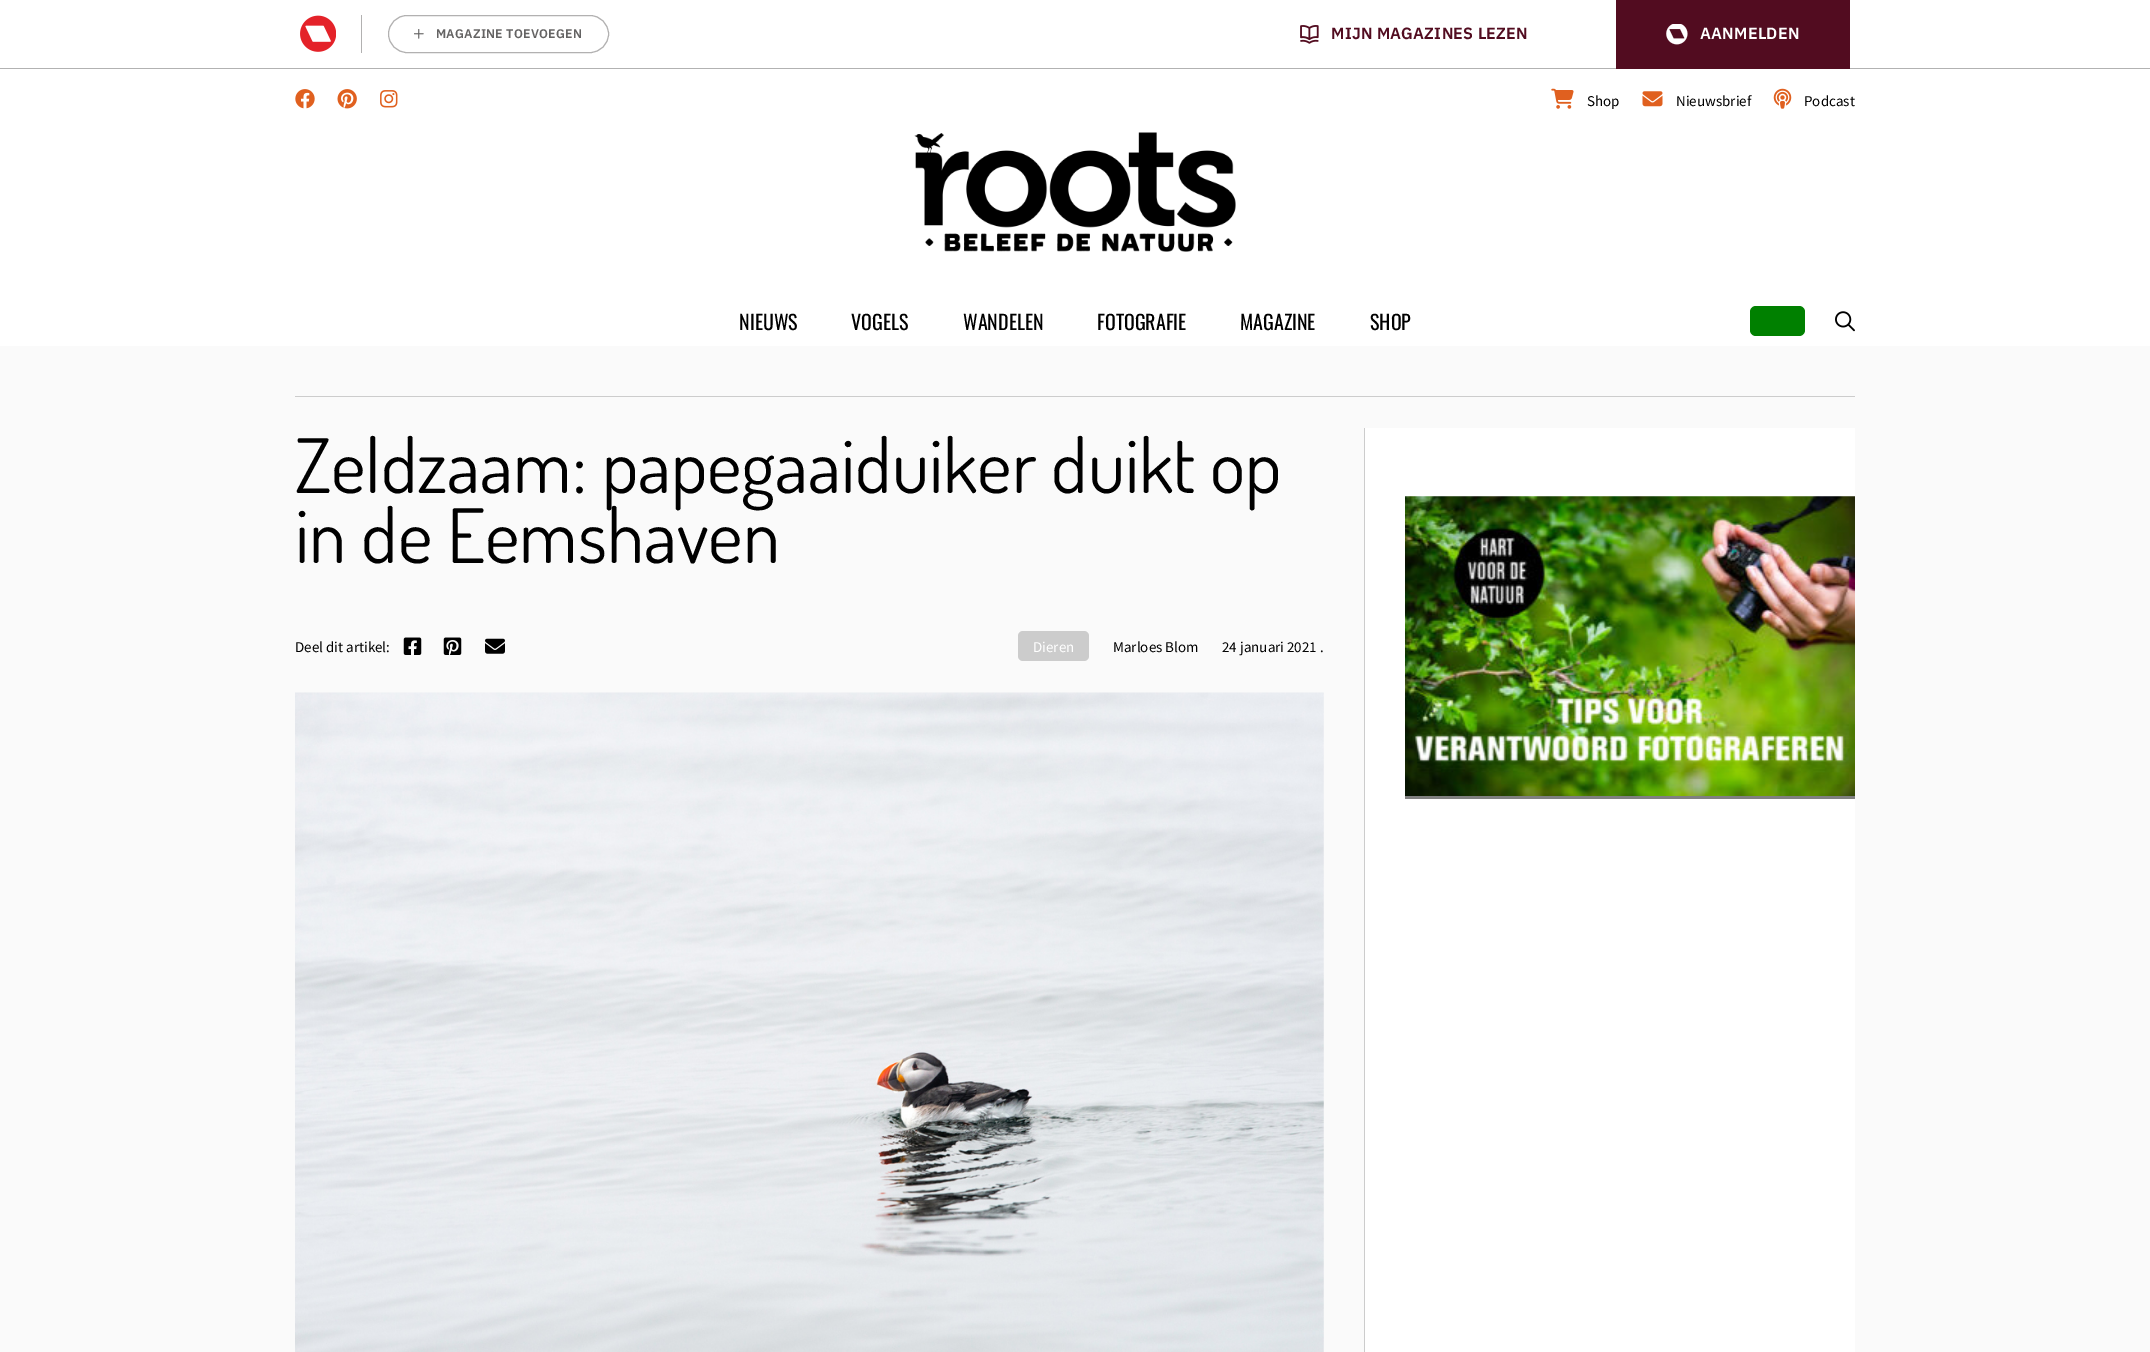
%!PS
<< /PageSize [2150 1352] >> setpagedevice
/m/moveto load def
/f/fill load def
/s/stroke load def
/C { dup -16 bitshift 255 div exch dup -8 bitshift 255 and 255 div exch 255 and 255 div setrgbcolor } def
/F { [ exch dup neg 0 0 3 -1 roll 0 0 ] selectfont } def
/T { moveto show } def
/R { rectfill } def
/Q { 5 dict begin { /r /h /w /y /x } { exch def } forall
  x r add y moveto x w add y 2 copy h add r arct x w add y h add x 1 index r arct
  x y h add x y r arct x y 2 copy exch w add exch r arct closepath end } def
/I { 5 dict begin { /h /w /y /x /name } { exch def } forall
  gsave x y translate w h scale
  w h 8 [w 0 0 h 0 0] name (r) file false 3 colorimage grestore end } def
0 1352 translate 1 -1 scale
4 setmiterlimit
16#FAFAFA C
0 0 2150 1352 R
16#FFFFFF C
0 0 2150 68 R
16#B2B2B2 C
0 68 2150 1 R
16#B2B1B1 C
361 15 1 38 R
(1.rgb) 300 15 36 37 I
388.5 15.5 220 37 18.5 Q s
(2.rgb) 414 29 10 10 I
/IBMPlexSans-SemiBold 12.5 F
16#646363 C
436 38 m .25 0 (MAGAZINE TOEVOEGEN) ashow
(3.rgb) 1300 25 19 19 I
/IBMPlexSans-SemiBold 16.25 F
16#520C20 C
1331 39 m .25 0 (MIJN MAGAZINES LEZEN) ashow
1616 0 234 69 R
(4.rgb) 1666 24 22 21 I
16#FFFFFF C
1700 39 m .25 0 (AANMELDEN) ashow
0 69 2150 277 R
(5.rgb) 295 89 20 20 I
(6.rgb) 337 89 20 20 I
(7.rgb) 380 90 18 18 I
(8.rgb) 1551 88 23 21 I
/SourceSansPro-Regular 15 F
16#000000 C
(Shop) 1587 106 T
(9.rgb) 1642 91 21 16 I
(Nieuwsbrief) 1676 106 T
(10.rgb) 1773 88 19 21 I
(Podcast) 1804 106 T
(11.rgb) 914 132 322 120 I
/Oswald-Regular 20 F
(NIEUWS) 739 330 T
(VOGELS) 851 330 T
(WANDELEN) 963 330 T
(FOTOGRAFIE) 1097 330 T
(MAGAZINE) 1240 330 T
(SHOP) 1370 330 T
16#008000 C
1750 306 55 30 6 Q f
(12.rgb) 1835 311 20 21 I
16#CCCCCC C
295 396 1560 1 R
1364 428 1 924 R
/Dosis-Regular 75 F
16#000000 C
(Zeldzaam: papegaaiduiker duikt op) 295 493 T
(in de Eemshaven) 295 563 T
/SourceSansPro-Regular 15 F
(Deel dit artikel:) 295 652 T
(13.rgb) 403 637 19 18 I
(14.rgb) 443 637 19 18 I
(15.rgb) 485 638 20 16 I
16#CCCCCC C
1018 631 71 30 5 Q f
16#FFFFFF C
(Dieren) 1033 652 T
16#000000 C
(Marloes Blom) 1113 652 T
(24 januari 2021 .) 1222 652 T
(16.rgb) 295 692 1029 660 I
16#FFFFFF C
1365 428 490 924 R
(17.rgb) 1405 496 450 300 I
16#808080 C
1405 796 450 3 R
showpage
